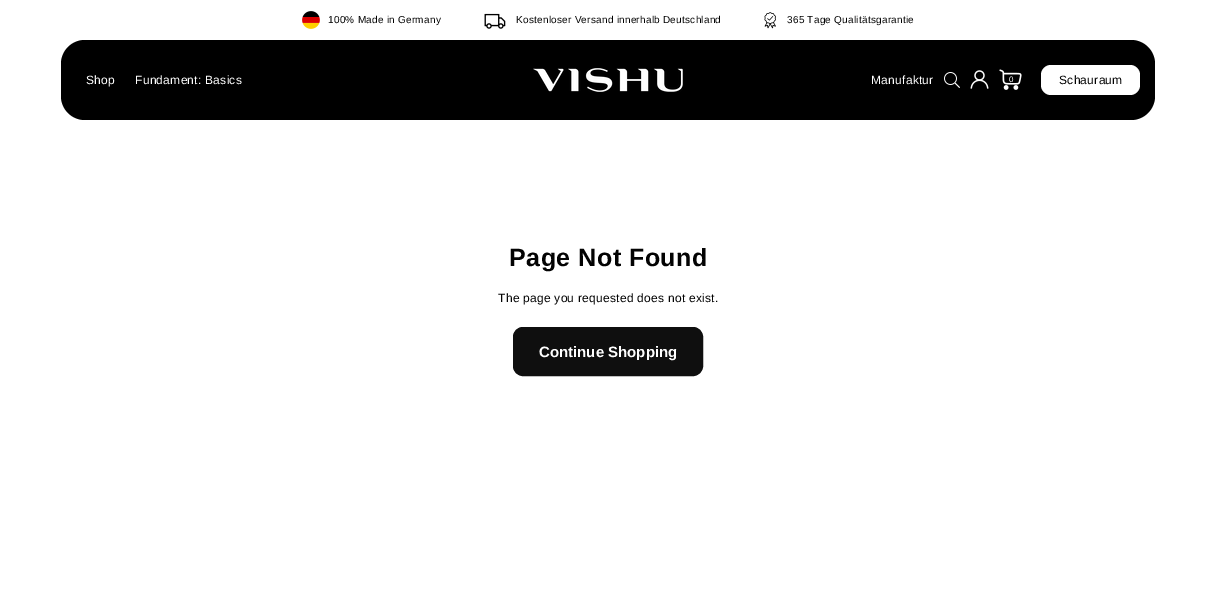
%!PS
<< /PageSize [1216 601] >> setpagedevice
/m/moveto load def
/f/fill load def
/s/stroke load def
/q/gsave load def
/Q_/grestore load def
/C { dup -16 bitshift 255 div exch dup -8 bitshift 255 and 255 div exch 255 and 255 div setrgbcolor } def
/F { [ exch dup neg 0 0 3 -1 roll 0 0 ] selectfont } def
/T { moveto show } def
/R { rectfill } def
/Q { 5 dict begin { /r /h /w /y /x } { exch def } forall
  x r add y moveto x w add y 2 copy h add r arct x w add y h add x 1 index r arct
  x y h add x y r arct x y 2 copy exch w add exch r arct closepath end } def
/I { 5 dict begin { /h /w /y /x /name } { exch def } forall
  gsave x y translate w h scale
  w h 8 [w 0 0 h 0 0] name (r) file false 3 colorimage grestore end } def
0 601 translate 1 -1 scale
4 setmiterlimit
16#FFFFFF C
0 0 1216 601 R
(1.rgb) 302 11 18 18 I
/LiberationSans-Regular 10 F
16#030303 C
328 23 m .25 0 (100% Made in Germany) ashow
(2.rgb) 484 13 22 16 I
516 23 m .25 0 (Kostenloser Versand innerhalb Deutschland) ashow
(3.rgb) 764 12 12 17 I
787 23 m .25 0 (365 Tage Qualitätsgarantie) ashow
16#000000 C
61 40 1094 80 24 Q f
/LiberationSans-Regular 12 F
16#FFFFFF C
86 84 m .25 0 (Shop) ashow
135 84 m .25 0 (Fundament: Basics) ashow
(4.rgb) 533 68 150 24 I
871 84 m .25 0 (Manufaktur) ashow
(5.rgb) 944 72 16 16 I
(6.rgb) 970 70 19 19 I
(7.rgb) 999 69 23 21 I
/LiberationSans-Regular 8 F
1009 82 m .25 0 (0) ashow
1041 65 99 30 10 Q f
/LiberationSans-Regular 12 F
16#030303 C
1059 84 m .25 0 (Schauraum) ashow
/LiberationSans-Bold 25 F
509 266 m .5 0 (Page Not Found) ashow
/LiberationSans-Regular 12 F
498 302 m .25 0 (The page you requested does not exist.) ashow
16#0F0F0F C
513.5 327.5 189 48 9.5 Q q f Q_
s
/LiberationSans-Bold 15 F
16#FFFFFF C
(Continue Shopping) 539 357 T
showpage
